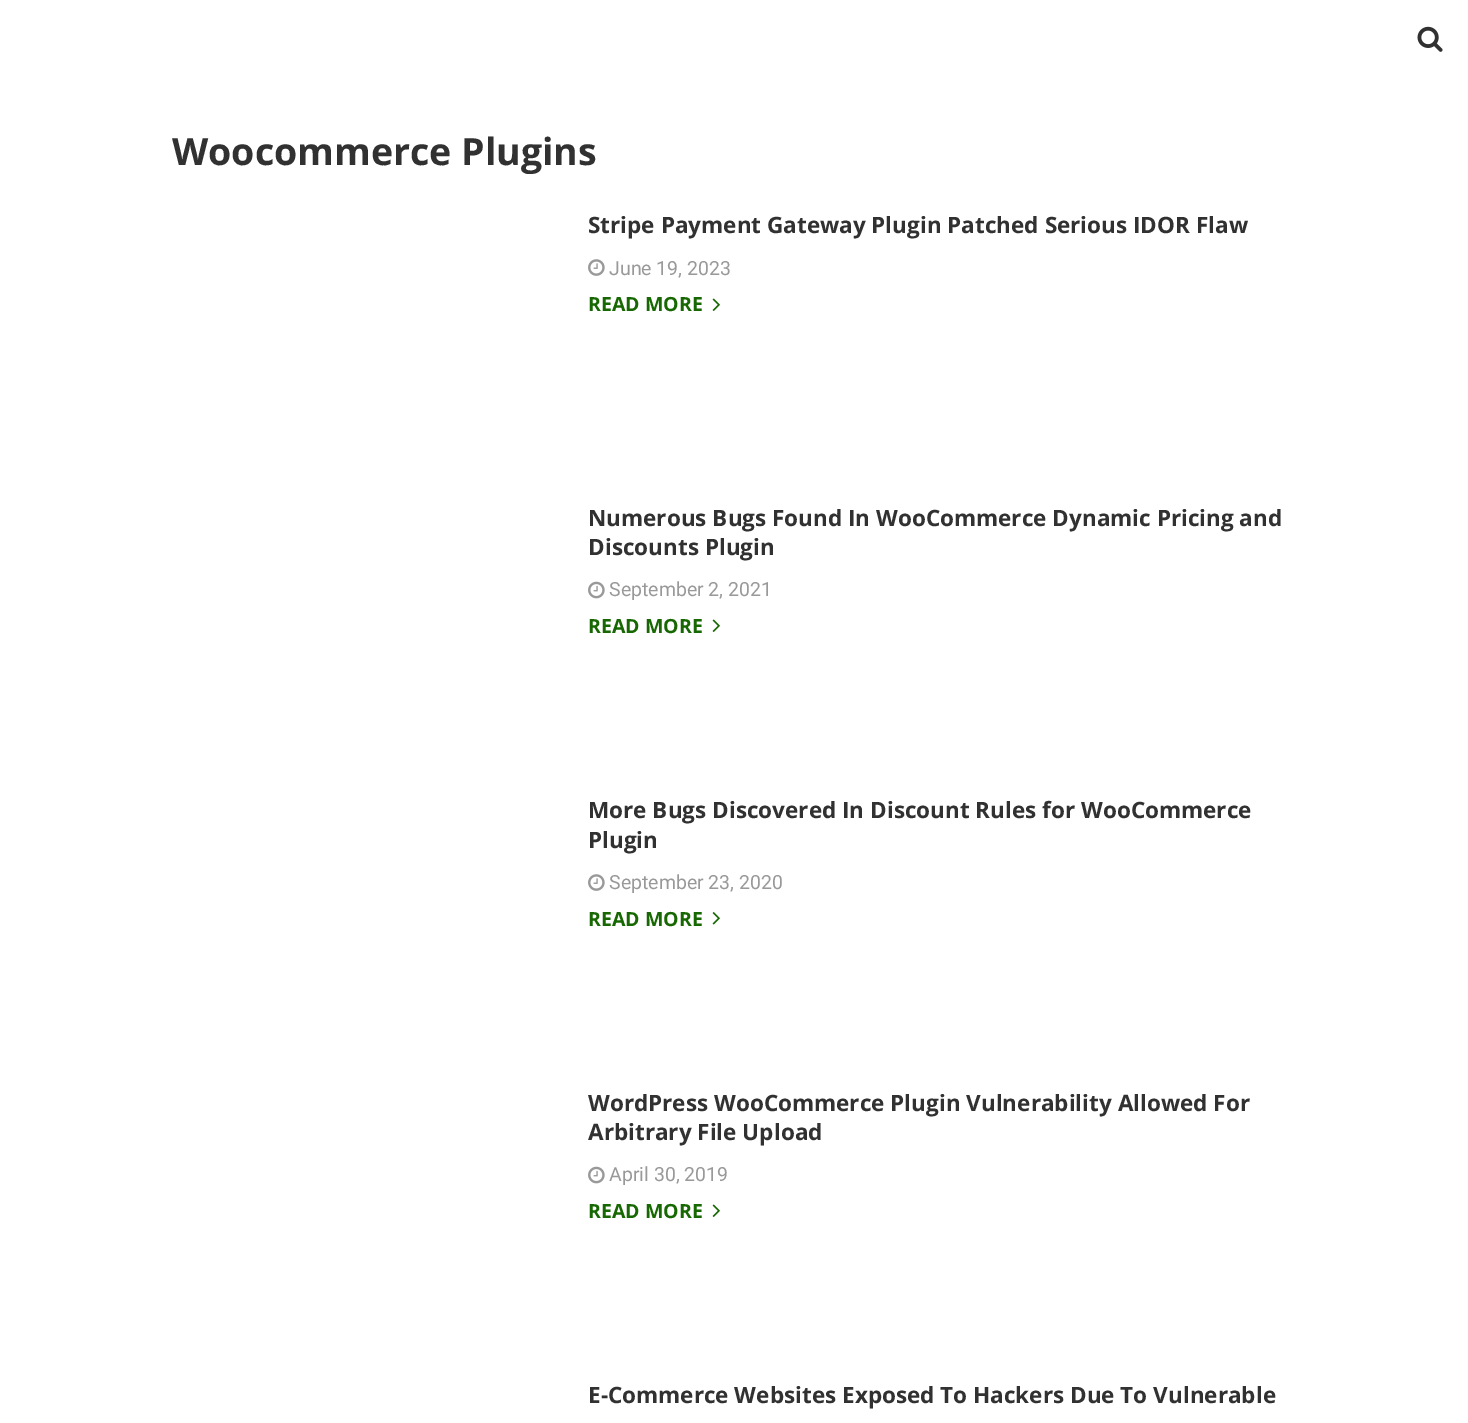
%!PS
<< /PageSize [1468 1423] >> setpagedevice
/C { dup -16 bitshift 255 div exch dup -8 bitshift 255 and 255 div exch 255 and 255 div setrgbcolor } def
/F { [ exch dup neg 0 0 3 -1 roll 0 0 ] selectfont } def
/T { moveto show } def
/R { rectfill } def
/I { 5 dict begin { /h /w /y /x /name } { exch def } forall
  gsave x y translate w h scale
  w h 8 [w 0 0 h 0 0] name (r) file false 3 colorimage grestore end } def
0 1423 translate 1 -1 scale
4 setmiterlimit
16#FFFFFF C
0 0 1468 1423 R
(1.rgb) 1417 26 26 26 I
/OpenSans-Bold 37.5 F
16#313131 C
(Woocommerce Plugins) 172 165 T
/OpenSans-Bold 22.5 F
(Stripe Payment Gateway Plugin Patched Serious IDOR Flaw) 588 233 T
(2.rgb) 588 259 17 17 I
/Roboto-Regular 19.5 F
16#999999 C
(June 19, 2023) 609 275 T
/OpenSans-Bold 19.5 F
16#176802 C
(READ MORE) 588 311 T
(3.rgb) 712 298 8 13 I
/OpenSans-Bold 22.5 F
16#313131 C
(Numerous Bugs Found In WooCommerce Dynamic Pricing and) 588 526 T
(Discounts Plugin) 588 555 T
(4.rgb) 588 581 17 18 I
/Roboto-Regular 19.5 F
16#999999 C
(September 2, 2021) 609 596 T
/OpenSans-Bold 19.5 F
16#176802 C
(READ MORE) 588 633 T
(3.rgb) 712 619 8 13 I
/OpenSans-Bold 22.5 F
16#313131 C
(More Bugs Discovered In Discount Rules for WooCommerce) 588 818 T
(Plugin) 588 848 T
(2.rgb) 588 874 17 17 I
/Roboto-Regular 19.5 F
16#999999 C
(September 23, 2020) 609 889 T
/OpenSans-Bold 19.5 F
16#176802 C
(READ MORE) 588 926 T
(5.rgb) 712 912 8 13 I
/OpenSans-Bold 22.5 F
16#313131 C
(WordPress WooCommerce Plugin Vulnerability Allowed For) 588 1111 T
(Arbitrary File Upload) 588 1140 T
(4.rgb) 588 1166 17 18 I
/Roboto-Regular 19.5 F
16#999999 C
(April 30, 2019) 609 1181 T
/OpenSans-Bold 19.5 F
16#176802 C
(READ MORE) 588 1218 T
(3.rgb) 712 1204 8 13 I
/OpenSans-Bold 22.5 F
16#313131 C
(E-Commerce Websites Exposed To Hackers Due To Vulnerable) 588 1403 T
showpage
